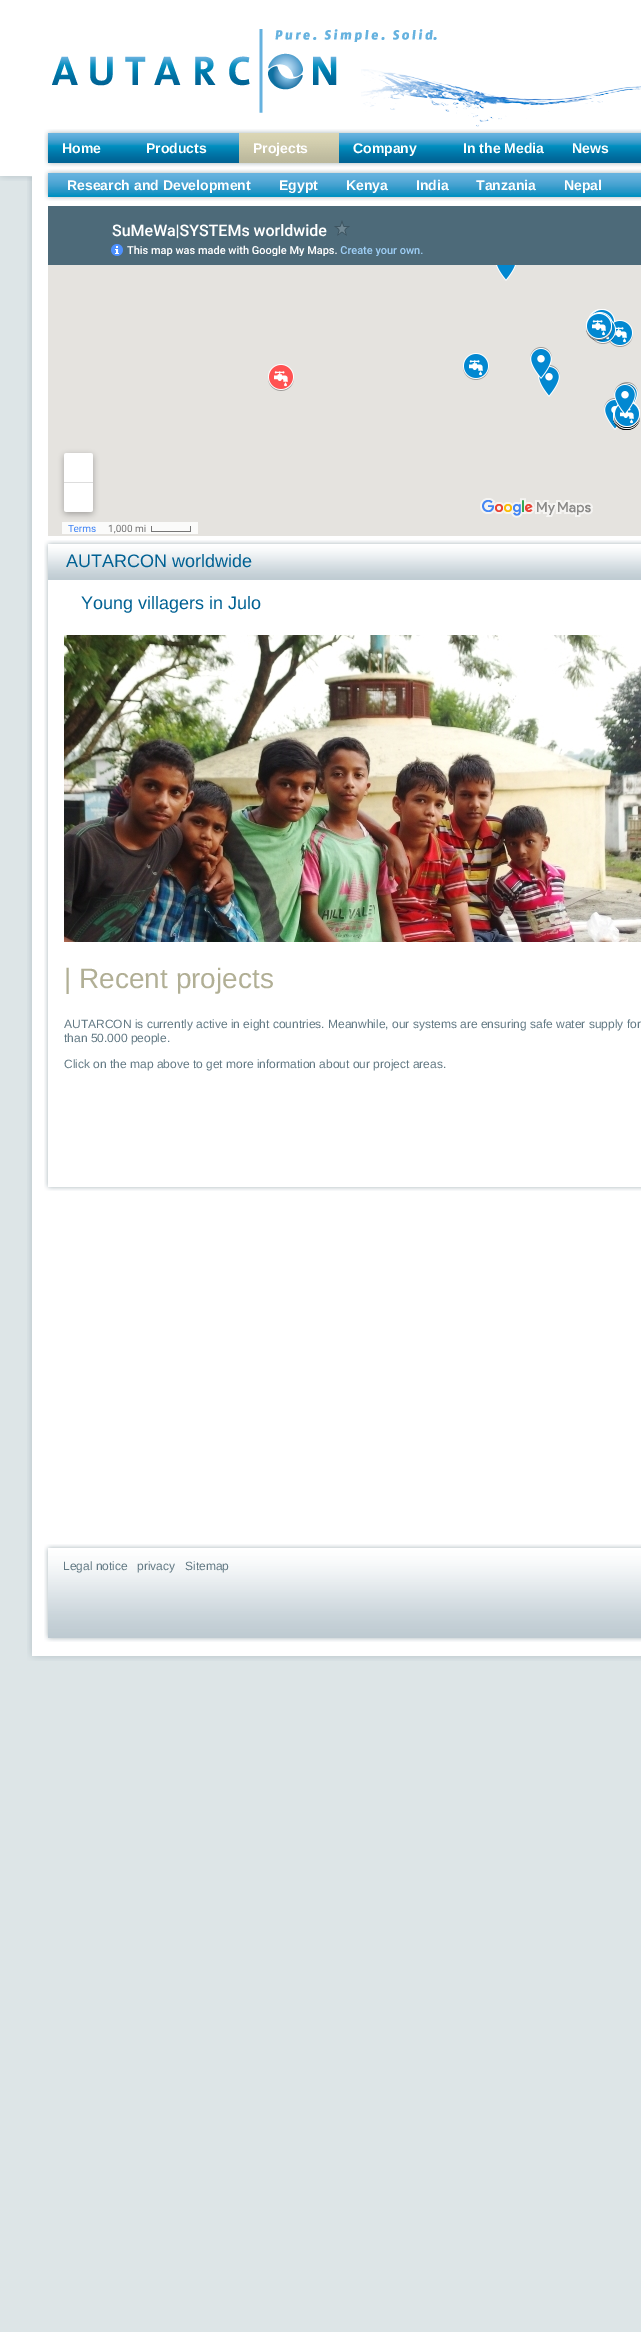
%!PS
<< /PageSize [641 2332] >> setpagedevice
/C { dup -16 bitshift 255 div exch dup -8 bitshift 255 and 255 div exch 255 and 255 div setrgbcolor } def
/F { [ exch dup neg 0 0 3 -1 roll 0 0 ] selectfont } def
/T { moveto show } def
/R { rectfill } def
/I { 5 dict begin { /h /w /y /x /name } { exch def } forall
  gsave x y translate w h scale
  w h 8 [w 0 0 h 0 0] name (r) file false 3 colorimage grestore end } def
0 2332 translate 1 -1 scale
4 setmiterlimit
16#DDE5E7 C
0 0 641 2332 R
(1.rgb) 0 0 641 181 I
(2.rgb) 27 176 614 30 I
(3.rgb) 52 29 385 84 I
(4.rgb) 361 69 280 58 I
(5.rgb) 44 129 597 72 I
(6.rgb) 239 133 100 30 I
/LiberationSans-Bold 14 F
16#FFFFFF C
(Projects) 253 153 T
(Research and Development) 67 190 T
(Egypt) 279 190 T
(Kenya) 346 190 T
(India) 416 190 T
(Tanzania) 476 190 T
(Nepal) 564 190 T
(Home) 62 153 T
(Products) 146 153 T
(Company) 353 153 T
(In the Media) 463 153 T
(News) 572 153 T
(7.rgb) 27 206 614 333 I
(8.rgb) 48 206 593 330 I
(9.rgb) 27 539 614 1004 I
(10.rgb) 44 540 597 41 I
/LiberationSans-Regular 18 F
16#006193 C
(AUTARCON worldwide) 66 567 T
(11.rgb) 44 581 4 600 I
(Young villagers in Julo) 81 609 T
(12.rgb) 64 635 577 307 I
/LiberationSans-Regular 28 F
16#B1AF95 C
(| Recent projects) 64 988 T
/LiberationSans-Regular 12 F
16#627984 C
(AUTARCON is currently active in eight countries. Meanwhile, our systems are ensuring safe water supply for) 64 1028 T
(than 50.000 people.) 64 1042 T
(Click on the map above to get more information about our project areas.) 64 1068 T
(13.rgb) 44 1181 597 10 I
(14.rgb) 27 1543 614 118 I
(15.rgb) 44 1544 597 98 I
(Legal notice) 63 1570 T
(privacy) 137 1570 T
(Sitemap) 185 1570 T
showpage
